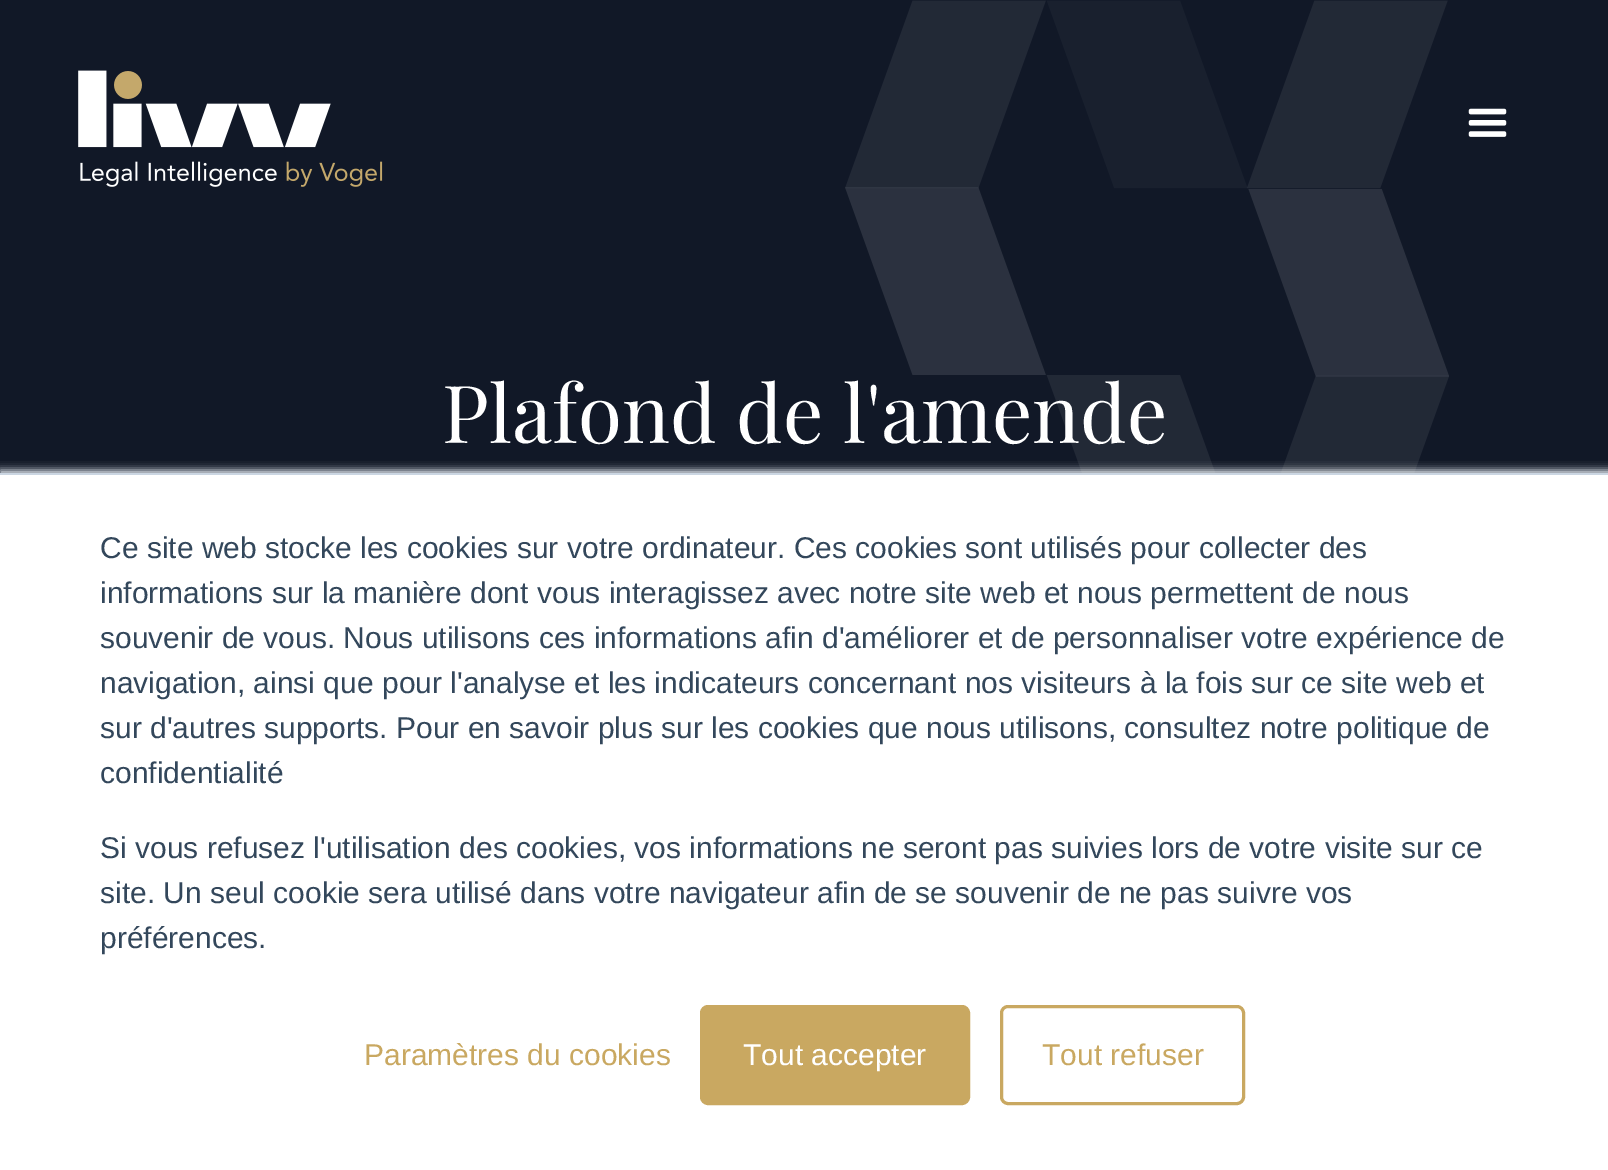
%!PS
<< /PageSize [1608 1170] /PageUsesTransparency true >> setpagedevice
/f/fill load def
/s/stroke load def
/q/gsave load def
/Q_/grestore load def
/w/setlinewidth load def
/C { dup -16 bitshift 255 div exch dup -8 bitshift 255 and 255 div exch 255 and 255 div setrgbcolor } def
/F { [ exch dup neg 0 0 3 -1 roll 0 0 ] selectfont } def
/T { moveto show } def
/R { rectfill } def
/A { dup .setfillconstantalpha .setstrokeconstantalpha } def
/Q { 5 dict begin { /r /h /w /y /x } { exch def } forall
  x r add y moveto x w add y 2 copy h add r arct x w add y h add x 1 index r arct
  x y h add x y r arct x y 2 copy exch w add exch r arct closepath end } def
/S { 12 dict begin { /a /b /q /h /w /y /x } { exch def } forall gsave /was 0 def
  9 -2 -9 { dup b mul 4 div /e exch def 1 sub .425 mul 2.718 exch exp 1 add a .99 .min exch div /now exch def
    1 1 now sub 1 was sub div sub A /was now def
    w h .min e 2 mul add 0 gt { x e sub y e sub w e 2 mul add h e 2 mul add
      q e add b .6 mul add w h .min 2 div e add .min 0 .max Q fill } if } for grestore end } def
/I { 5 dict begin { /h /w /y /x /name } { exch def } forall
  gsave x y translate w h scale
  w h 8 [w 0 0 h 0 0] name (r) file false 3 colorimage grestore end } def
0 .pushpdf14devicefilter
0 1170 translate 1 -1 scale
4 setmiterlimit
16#111827 C
0 0 1608 1170 R
(1.rgb) 78 70 305 117 I
(2.rgb) 1468 108 39 29 I
(3.rgb) 845 0 604 473 I
/PlayfairDisplay-Regular 80 F
16#FFFFFF C
(Plafond de l'amende) 442 443 T
16#EAF0F6 C
0 470 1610 698 0 4 1 S
16#CBD6E2 C
0 473 1608 2 R
16#FFFFFF C
0 475 1608 695 R
/LiberationSans-Regular 30 F
16#33475B C
(Ce site web stocke les cookies sur votre ordinateur. Ces cookies sont utilisés pour collecter des) 100 558 T
(informations sur la manière dont vous interagissez avec notre site web et nous permettent de nous) 100 603 T
(souvenir de vous. Nous utilisons ces informations afin d'améliorer et de personnaliser votre expérience de) 100 648 T
(navigation, ainsi que pour l'analyse et les indicateurs concernant nos visiteurs à la fois sur ce site web et) 100 693 T
(sur d'autres supports. Pour en savoir plus sur les cookies que nous utilisons, consultez notre politique de) 100 738 T
(confidentialité) 100 783 T
(Si vous refusez l'utilisation des cookies, vos informations ne seront pas suivies lors de votre visite sur ce) 100 858 T
(site. Un seul cookie sera utilisé dans votre navigateur afin de se souvenir de ne pas suivre vos) 100 903 T
(préférences.) 100 948 T
16#C9A861 C
(Paramètres du cookies) 364 1065 T
701.5 1006.5 267 97 6.5 Q q f Q_
3 w
s
16#FFFFFF C
(Tout accepter) 743 1065 T
16#C9A861 C
1001.5 1006.5 242 97 6.5 Q s
(Tout refuser) 1042 1065 T
.poppdf14devicefilter showpage
